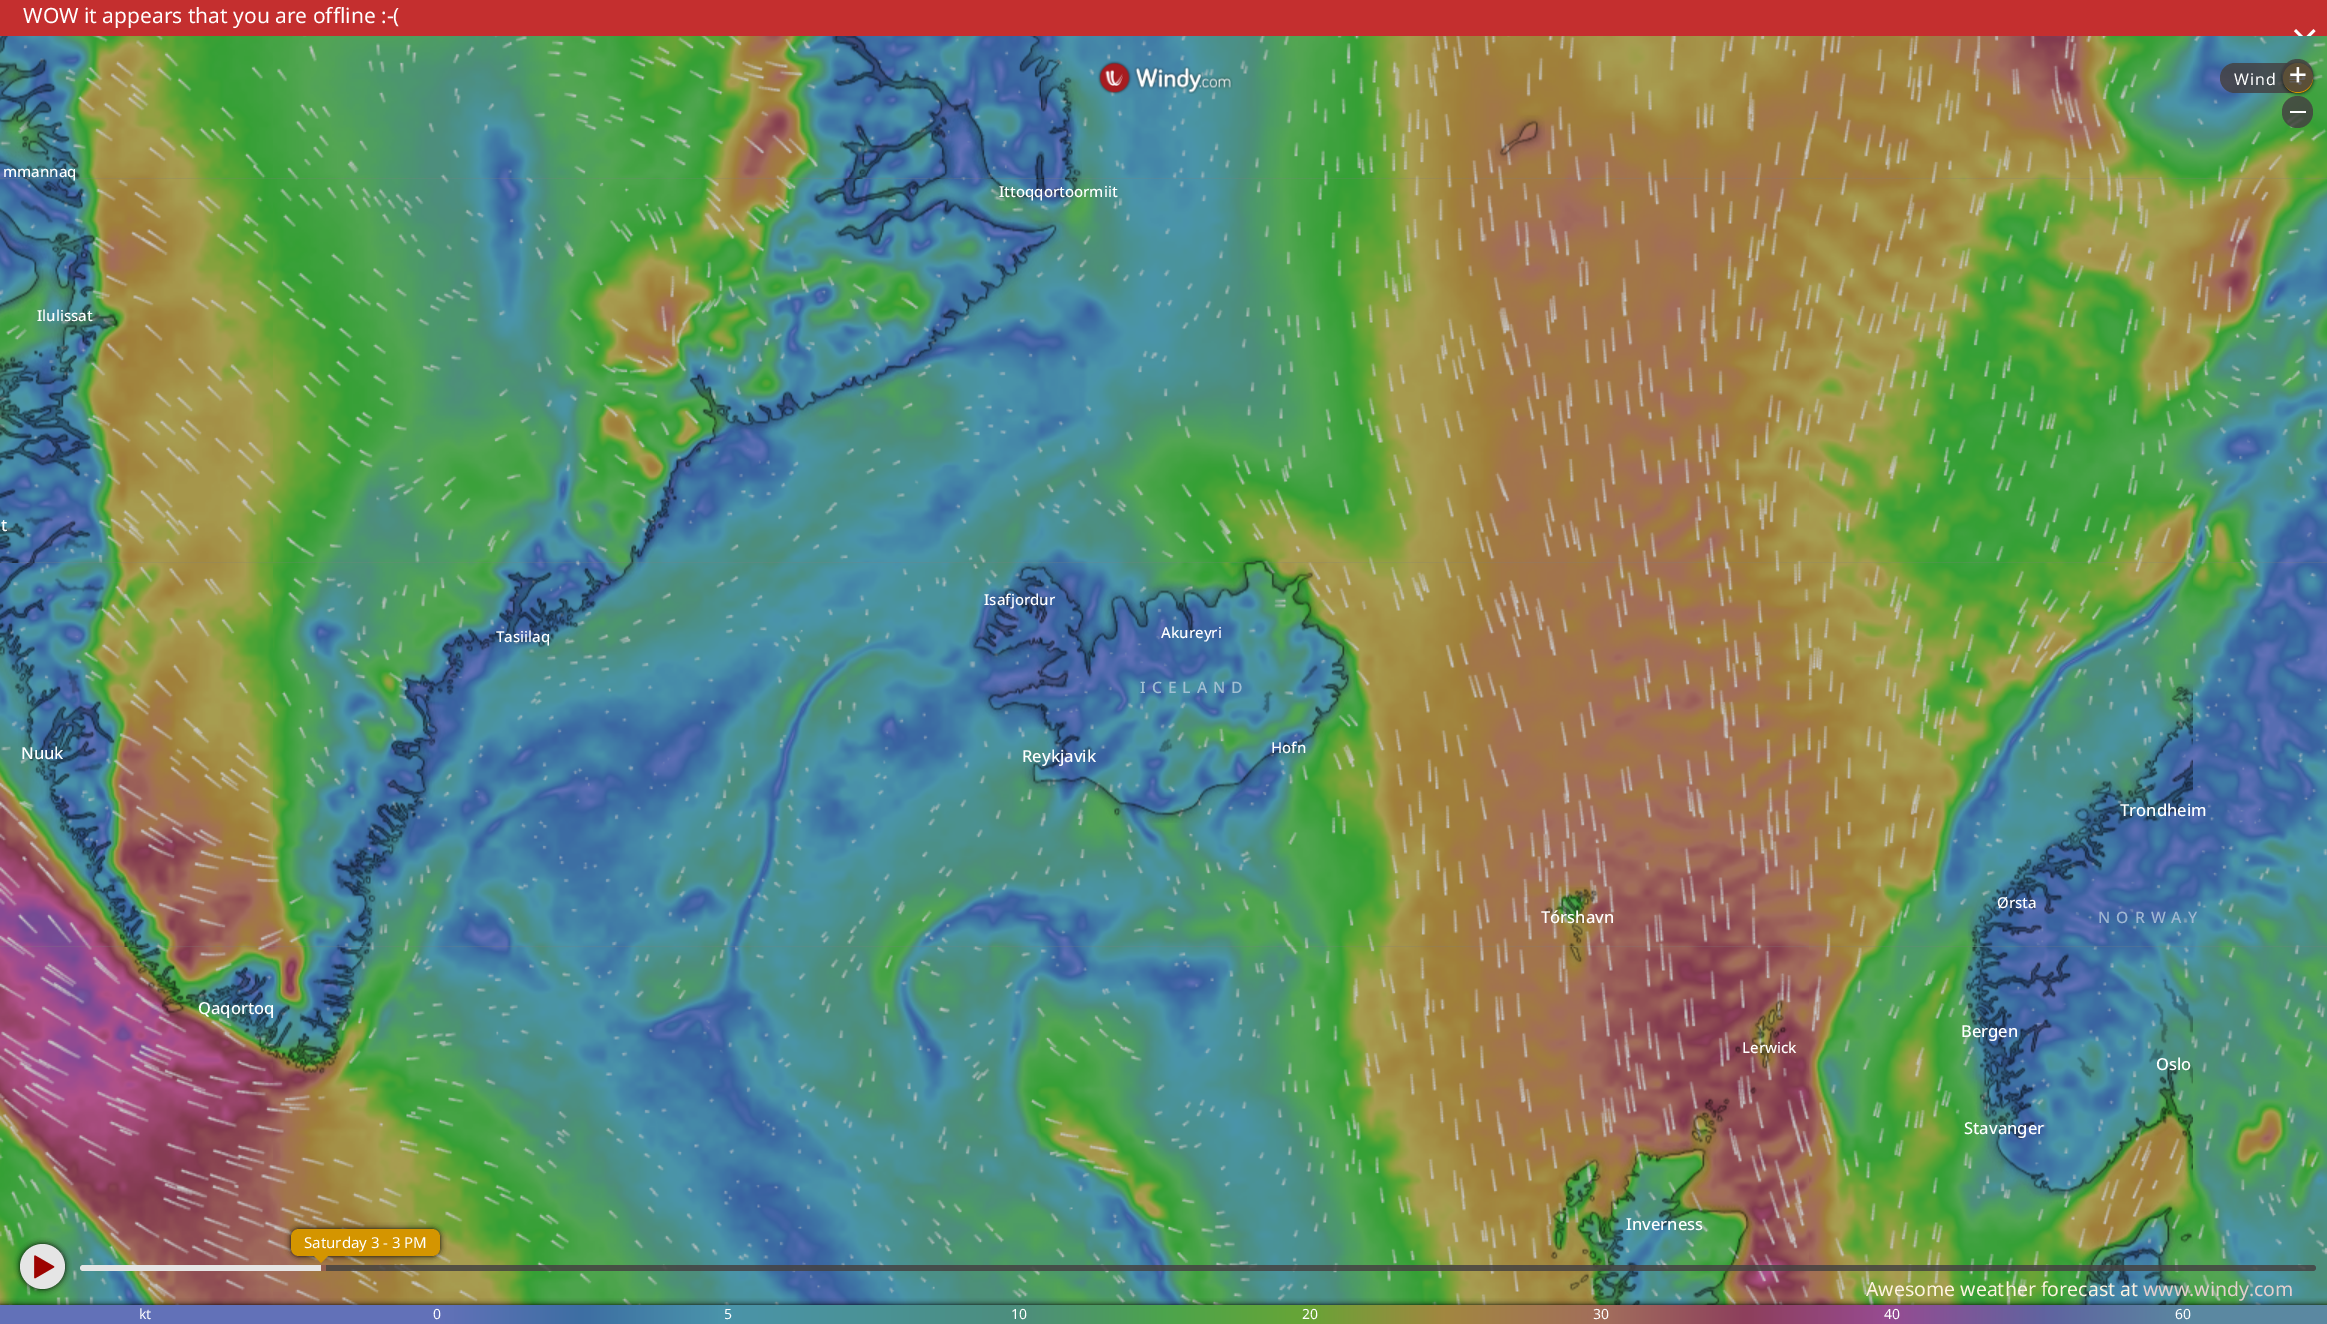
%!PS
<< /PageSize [2327 1324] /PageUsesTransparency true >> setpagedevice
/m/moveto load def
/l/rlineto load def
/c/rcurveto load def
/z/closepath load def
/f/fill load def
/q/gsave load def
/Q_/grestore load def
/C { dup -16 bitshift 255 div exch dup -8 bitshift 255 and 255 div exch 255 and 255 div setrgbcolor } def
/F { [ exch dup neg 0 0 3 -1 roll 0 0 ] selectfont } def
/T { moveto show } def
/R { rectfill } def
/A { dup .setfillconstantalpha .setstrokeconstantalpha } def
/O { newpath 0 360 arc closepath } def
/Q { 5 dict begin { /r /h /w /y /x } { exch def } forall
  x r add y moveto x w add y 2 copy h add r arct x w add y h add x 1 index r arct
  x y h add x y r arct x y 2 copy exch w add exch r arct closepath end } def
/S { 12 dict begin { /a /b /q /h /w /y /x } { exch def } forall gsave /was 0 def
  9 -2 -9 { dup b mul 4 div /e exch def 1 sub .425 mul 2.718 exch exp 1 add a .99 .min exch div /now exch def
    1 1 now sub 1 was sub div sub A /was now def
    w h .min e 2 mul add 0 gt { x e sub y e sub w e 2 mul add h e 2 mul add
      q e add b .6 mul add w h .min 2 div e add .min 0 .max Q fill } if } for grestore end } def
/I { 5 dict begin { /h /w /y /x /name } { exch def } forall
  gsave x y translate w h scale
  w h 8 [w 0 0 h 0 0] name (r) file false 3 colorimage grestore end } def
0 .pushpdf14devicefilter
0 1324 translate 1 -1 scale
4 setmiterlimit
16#FFFFFF C
0 0 2327 1324 R
16#C42F2F C
0 0 2327 36 R
/NotoSans-Regular 21 F
16#FFFFFF C
(WOW it appears that you are offline :-\() 23 23 T
(1.rgb) 2293 29 23 7 I
(16.rgb) 1041 178 384 385 I
(9.rgb) 1041 36 384 143 I
(13.rgb) 0 178 273 385 I
(6.rgb) 0 36 273 143 I
(14.rgb) 273 178 384 385 I
(7.rgb) 273 36 384 143 I
(15.rgb) 657 178 384 385 I
(8.rgb) 657 36 384 143 I
(17.rgb) 1425 178 384 385 I
(10.rgb) 1425 36 384 143 I
(18.rgb) 1809 178 384 385 I
(11.rgb) 1809 36 384 143 I
(19.rgb) 2193 178 134 385 I
(12.rgb) 2193 36 134 143 I
(20.rgb) 0 562 273 385 I
(21.rgb) 273 562 384 385 I
(22.rgb) 657 562 384 385 I
(23.rgb) 1041 562 384 385 I
(24.rgb) 1425 562 384 385 I
(25.rgb) 1809 562 384 385 I
(26.rgb) 2193 562 134 385 I
(27.rgb) 0 946 273 359 I
(28.rgb) 273 946 384 359 I
(29.rgb) 657 946 384 359 I
(30.rgb) 1041 946 384 359 I
(31.rgb) 1425 946 384 359 I
(32.rgb) 1809 946 384 359 I
(33.rgb) 2193 946 134 359 I
(34.rgb) 0 36 2327 1269 I
(2.rgb) 1097 61 35 34 I
(3.rgb) 1134 66 99 28 I
0.84 A
16#444141 C
2220 63 93 30 15 Q f
/NotoSans-Regular 16 F
1 A
16#FFFFFF C
2234 85 m 1 0 (Wind) ashow
16#000000 C
2283 63 30 30 15 2 1 S
16#D49500 C
2298 78 15 O f
(4.rgb) 2289 73 17 12 I
0.84 A
16#444141 C
2282 59 31 33 15.5 Q f
1 A
(5.rgb) 2290 67 16 16 I
0.84 A
2282 96 31 32 15.5 Q f
1 A
16#FFFFFF C
2290 111 16 2 R
(35.rgb) 0 36 80 143 I
(41.rgb) 657 178 384 384 I
(36.rgb) 831 36 210 143 I
(42.rgb) 1041 178 231 385 I
(37.rgb) 1041 36 41 143 I
(38.rgb) 1495 115 50 46 I
(39.rgb) 0 179 120 384 I
(40.rgb) 629 512 28 51 I
(43.rgb) 0 563 151 384 I
(44.rgb) 331 562 310 385 I
(45.rgb) 969 562 72 228 I
(46.rgb) 1041 562 314 261 I
(47.rgb) 1544 887 54 60 I
(48.rgb) 1968 684 225 263 I
(49.rgb) 123 947 150 115 I
(50.rgb) 273 947 99 133 I
(51.rgb) 1548 947 240 358 I
(52.rgb) 1962 947 231 358 I
/NotoSans-Medium 15 F
(mmannaq) 3 177 T
(Ittoqqortoormiit) 999 197 T
(Ilulissat) 37 321 T
/NotoSans-Medium 16.5 F
(t) 1 531 T
/NotoSans-Medium 15 F
(Isafjordur) 984 605 T
(Tasiilaq) 496 642 T
(Akureyri) 1161 638 T
/NotoSans-Medium 15.75 F
16#A2C0D3 C
1140 693 m 6 0 (ICELAND) ashow
/NotoSans-Medium 15 F
16#FFFFFF C
(Hofn) 1271 753 T
/NotoSans-Medium 16.5 F
(Reykjavik) 1022 762 T
(Nuuk) 21 759 T
(Tórshavn) 1541 923 T
(Trondheim) 2120 816 T
/NotoSans-Medium 15 F
(Ørsta) 1997 908 T
/NotoSans-Medium 15.75 F
16#A0B7D2 C
2098 923 m 6 0 (NORWAY) ashow
/NotoSans-Medium 16.5 F
16#FFFFFF C
(Qaqortoq) 198 1014 T
/NotoSans-Medium 15 F
(Lerwick) 1742 1053 T
/NotoSans-Medium 16.5 F
(Inverness) 1626 1230 T
(Bergen) 1961 1037 T
(Oslo) 2156 1070 T
(Stavanger) 1964 1134 T
16#000000 C
20 1244 45 45 22.5 3 1 S
16#E5E5E5 C
42.5 1266.5 22.5 O f
(53.rgb) 34 1255 21 24 I
16#000000 C
291 1229 149 27 8 3 1 S
16#D49500 C
291 1229 149 27 8 Q f
/NotoSans-Regular 15 F
16#FFFFFF C
(Saturday 3 - 3 PM) 304 1248 T
16#D49500 C
313.5 1255.5 m 15 0 l -7.5 7.5 l z f
0.84 A
16#444141 C
80 1265 2236 6 3 Q f
1 A
16#E5E5E5 C
83 1265 m 238 0 l 0 6 l -238 0 l -1.5 0 -3 -1.5 -3 -3 c 0 -1.5 1.5 -3 3 -3 c z f
16#946051 C
321 1265 5 6 R
16#000000 C
0 1305 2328 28 0 3 1 S
/NotoSans-Regular 19.5 F
16#FFF3E1 C
(Awesome weather forecast at) 1866 1296 T
16#E6CECE C
(www.windy.com) 2143 1296 T
q 0 1305 m 2327 0 l 0 19 l -2327 0 l z clip newpath
<< /ShadingType 2 /ColorSpace /DeviceRGB /Coords [0 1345 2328 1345] /Extend [true true] /Function << /FunctionType 3 /Domain [0 1] /Functions [<< /FunctionType 2 /Domain [0 1] /C0 [.384 .443 .722] /C1 [.384 .443 .722] /N 1 >> << /FunctionType 2 /Domain [0 1] /C0 [.384 .443 .722] /C1 [.239 .431 .639] /N 1 >> << /FunctionType 2 /Domain [0 1] /C0 [.239 .431 .639] /C1 [.29 .58 .667] /N 1 >> << /FunctionType 2 /Domain [0 1] /C0 [.29 .58 .667] /C1 [.29 .573 .58] /N 1 >> << /FunctionType 2 /Domain [0 1] /C0 [.29 .573 .58] /C1 [.302 .557 .486] /N 1 >> << /FunctionType 2 /Domain [0 1] /C0 [.302 .557 .486] /C1 [.298 .643 .298] /N 1 >> << /FunctionType 2 /Domain [0 1] /C0 [.298 .643 .298] /C1 [.404 .643 .212] /N 1 >> << /FunctionType 2 /Domain [0 1] /C0 [.404 .643 .212] /C1 [.635 .529 .251] /N 1 >> << /FunctionType 2 /Domain [0 1] /C0 [.635 .529 .251] /C1 [.635 .427 .361] /N 1 >> << /FunctionType 2 /Domain [0 1] /C0 [.635 .427 .361] /C1 [.553 .247 .361] /N 1 >> << /FunctionType 2 /Domain [0 1] /C0 [.553 .247 .361] /C1 [.592 .294 .569] /N 1 >> << /FunctionType 2 /Domain [0 1] /C0 [.592 .294 .569] /C1 [.373 .392 .627] /N 1 >> << /FunctionType 2 /Domain [0 1] /C0 [.373 .392 .627] /C1 [.357 .533 .631] /N 1 >> << /FunctionType 2 /Domain [0 1] /C0 [.357 .533 .631] /C1 [.357 .533 .631] /N 1 >>] /Bounds [.19 .25 .31 .38 .44 .5 .56 .62 .69 .75 .81 .88 .94] /Encode [0 1 0 1 0 1 0 1 0 1 0 1 0 1 0 1 0 1 0 1 0 1 0 1 0 1 0 1] >> >> shfill Q_
/NotoSans-Regular 14 F
16#FFFFFF C
(kt) 139 1319 T
(0) 433 1319 T
(5) 724 1319 T
(10) 1011 1319 T
(20) 1302 1319 T
(30) 1593 1319 T
(40) 1884 1319 T
(60) 2175 1319 T
.poppdf14devicefilter showpage
